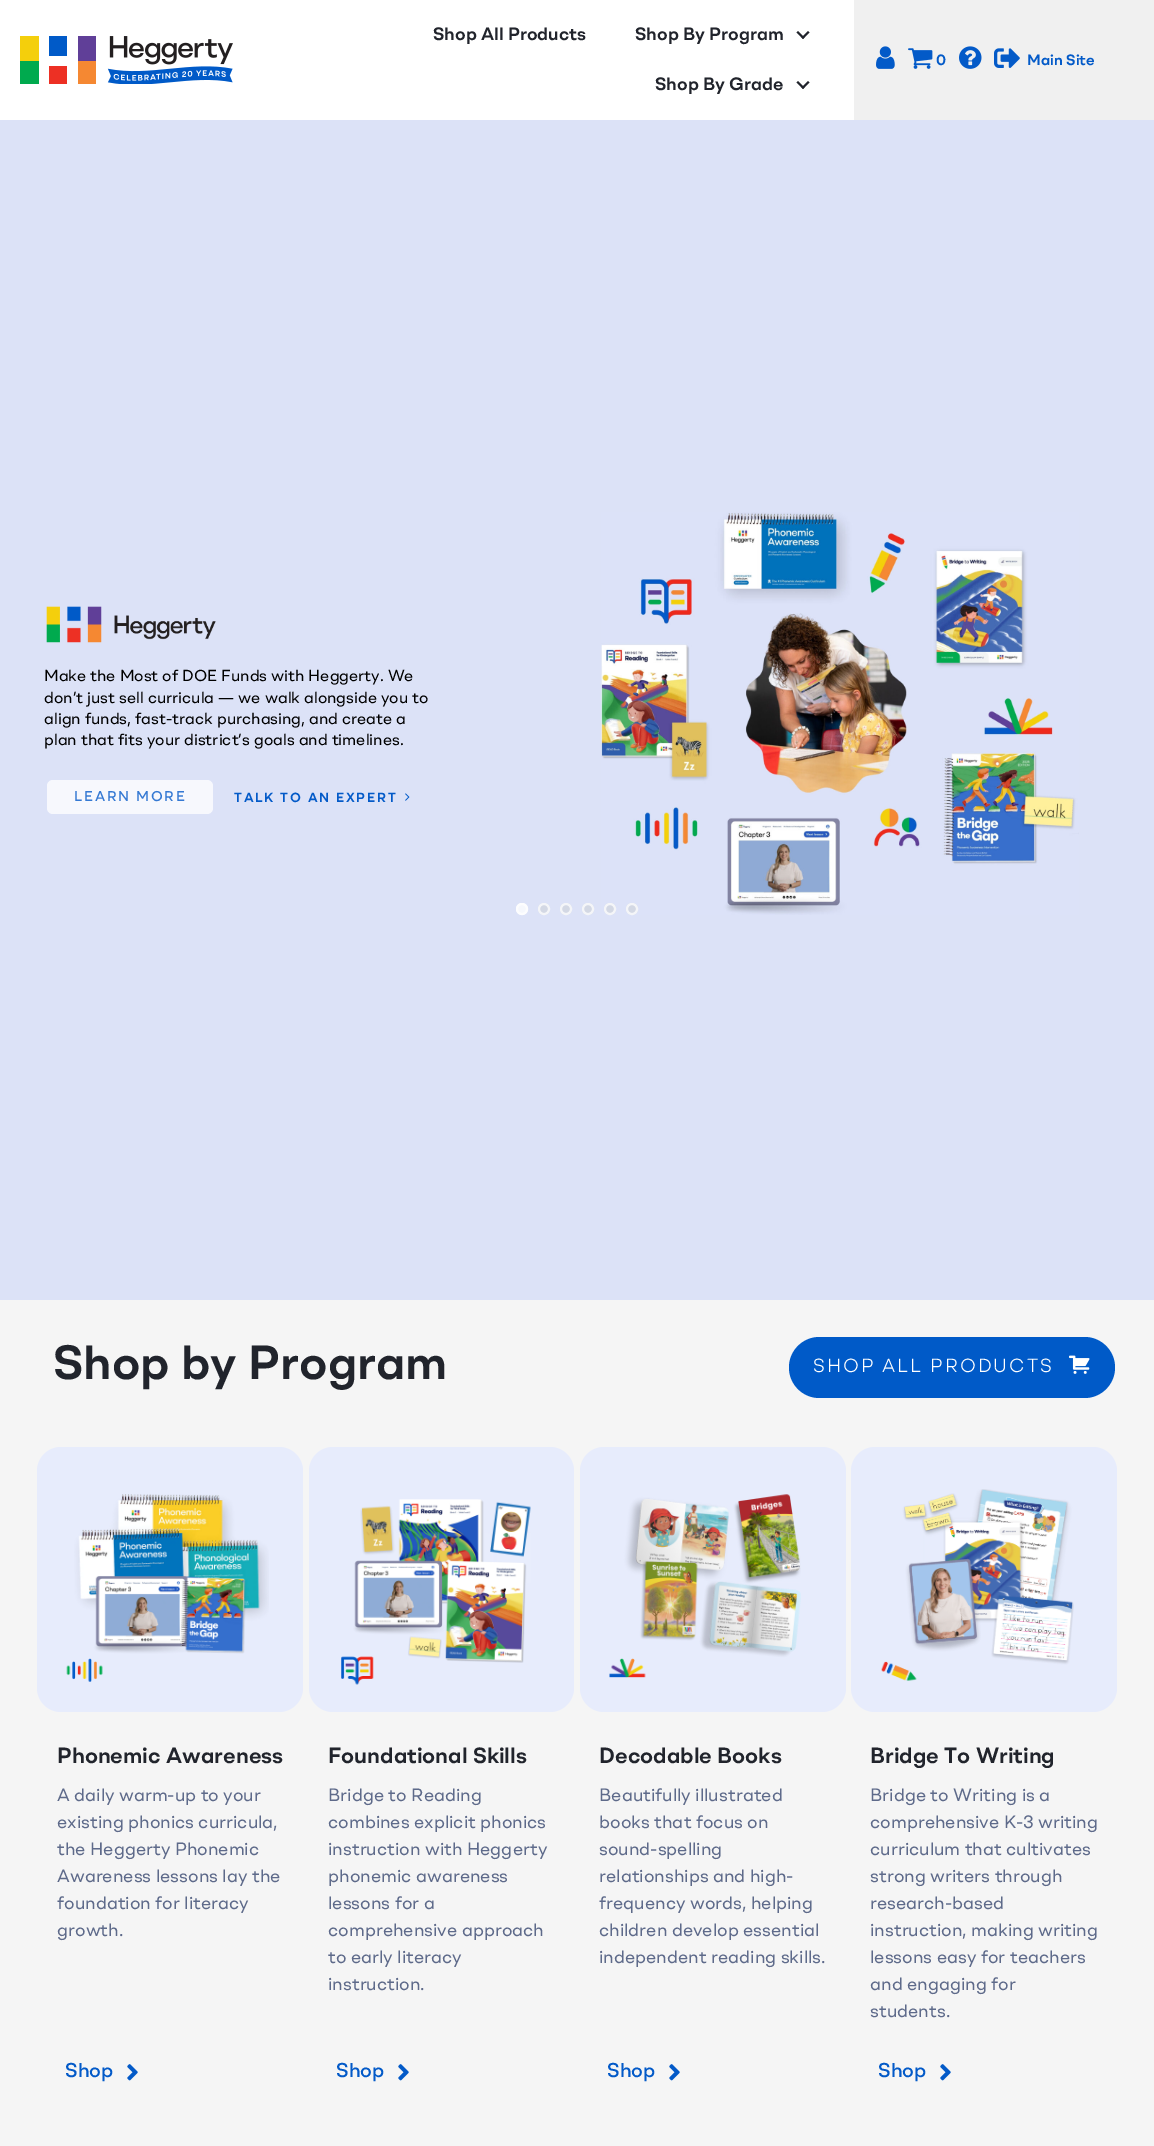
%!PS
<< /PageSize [1154 2146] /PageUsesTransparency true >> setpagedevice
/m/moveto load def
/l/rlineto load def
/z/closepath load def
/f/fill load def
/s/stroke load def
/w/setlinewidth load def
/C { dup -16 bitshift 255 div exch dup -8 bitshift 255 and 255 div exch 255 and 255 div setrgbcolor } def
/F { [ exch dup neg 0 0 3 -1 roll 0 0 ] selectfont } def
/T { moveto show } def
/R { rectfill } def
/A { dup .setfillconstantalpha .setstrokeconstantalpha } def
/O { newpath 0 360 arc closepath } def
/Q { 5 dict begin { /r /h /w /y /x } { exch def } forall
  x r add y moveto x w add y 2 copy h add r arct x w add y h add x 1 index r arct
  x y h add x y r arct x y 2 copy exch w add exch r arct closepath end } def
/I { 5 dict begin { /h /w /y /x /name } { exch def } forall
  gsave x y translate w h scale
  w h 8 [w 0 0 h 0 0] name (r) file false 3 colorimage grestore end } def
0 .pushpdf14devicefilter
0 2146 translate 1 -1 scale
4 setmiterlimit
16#F5F5F5 C
0 0 1154 2146 R
16#FFFFFF C
0 0 854 120 R
(1.rgb) 20 36 213 48 I
/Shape-SemiBold 18 F
16#21242C C
(Shop All Products) 433 40 T
(Shop By Program) 635 40 T
808 31 m 1.5 1.5 l -6.5 6.5 l -1.5 -1.5 l z f
798 31 m 6.5 6.5 l -1.5 1.5 l -6.5 -6.5 l z 808 81 m 1.5 1.5 l -6.5 6.5 l -1.5 -1.5 l z f
(Shop By Grade) 655 90 T
798 81 m 6.5 6.5 l -1.5 1.5 l -6.5 -6.5 l z f
16#F0F0F0 C
854 0 300 120 R
(2.rgb) 876 46 19 23 I
(3.rgb) 908 48 25 21 I
/Shape-SemiBold 15 F
16#035AC8 C
(0) 936 65 T
(4.rgb) 959 46 23 23 I
(5.rgb) 994 48 26 20 I
(Main Site) 1027 65 T
16#DCE2F7 C
0 120 1154 1180 R
(6.rgb) 46 606 170 37 I
(7.rgb) 601 512 478 403 I
/Shape-Regular 16 F
16#000000 C
(Make the Most of DOE Funds with Heggerty. We) 44 681 T
(don’t just sell curricula — we walk alongside you to) 44 703 T
(align funds, fast-track purchasing, and create a) 44 724 T
(plan that fits your district’s goals and timelines.) 44 745 T
16#F7F8FD C
47 780 166 34 6 Q f
/Shape-Medium 14.25 F
16#3579D3 C
74 801 m 1.75 0 (LEARN MORE) ashow
/Shape-SemiBold 13.25 F
16#035AC8 C
234 802 m 1.75 0 (TALK TO AN EXPERT) ashow
(8.rgb) 405 793 5 8 I
16#F6F8FD C
522 909 6 O f
0.75 A
16#FFFFFF C
2 w
522 909 5 O s
1 A
16#D3D8E4 C
544 909 6 O f
0.75 A
16#FFFFFF C
544 909 5 O s
1 A
16#D3D8E4 C
566 909 6 O f
0.75 A
16#FFFFFF C
566 909 5 O s
1 A
16#D3D8E4 C
588 909 6 O f
0.75 A
16#FFFFFF C
588 909 5 O s
1 A
16#D3D8E4 C
610 909 6 O f
0.75 A
16#FFFFFF C
610 909 5 O s
1 A
16#D3D8E4 C
632 909 6 O f
0.75 A
16#FFFFFF C
632 909 5 O s
/Shape-SemiBold 48 F
1 A
16#21242C C
(Shop by Program) 53 1379 T
16#005AC8 C
789 1337 326 61 30.5 Q f
/Shape-Light 19 F
16#FFFFFF C
813 1372 m 2 0 (SHOP ALL PRODUCTS) ashow
(9.rgb) 1069 1355 21 19 I
16#E7ECFC C
37 1447 266 265 24 Q f
(10.rgb) 66 1494 203 188 I
309 1447 265 265 24 Q f
(11.rgb) 341 1499 190 186 I
580 1447 266 265 24 Q f
(12.rgb) 609 1494 192 184 I
851 1447 266 265 24 Q f
(13.rgb) 881 1489 193 192 I
/Shape-SemiBold 22 F
16#21242C C
(Phonemic Awareness) 57 1763 T
/Shape-Regular 18 F
16#5E6A8A C
(A daily warm-up to your) 57 1801 T
(existing phonics curricula,) 57 1828 T
(the Heggerty Phonemic) 57 1855 T
(Awareness lessons lay the) 57 1882 T
(foundation for literacy) 57 1909 T
(growth.) 57 1936 T
/Shape-SemiBold 22 F
16#21242C C
(Foundational Skills) 328 1763 T
/Shape-Regular 18 F
16#5E6A8A C
(Bridge to Reading) 328 1801 T
(combines explicit phonics) 328 1828 T
(instruction with Heggerty) 328 1855 T
(phonemic awareness) 328 1882 T
(lessons for a) 328 1909 T
(comprehensive approach) 328 1936 T
(to early literacy) 328 1963 T
(instruction.) 328 1990 T
/Shape-SemiBold 22 F
16#21242C C
(Decodable Books) 599 1763 T
/Shape-Regular 18 F
16#5E6A8A C
(Beautifully illustrated) 599 1801 T
(books that focus on) 599 1828 T
(sound-spelling) 599 1855 T
(relationships and high-) 599 1882 T
(frequency words, helping) 599 1909 T
(children develop essential) 599 1936 T
(independent reading skills.) 599 1963 T
/Shape-SemiBold 22 F
16#21242C C
(Bridge To Writing) 870 1763 T
/Shape-Regular 18 F
16#5E6A8A C
(Bridge to Writing is a) 870 1801 T
(comprehensive K-3 writing) 870 1828 T
(curriculum that cultivates) 870 1855 T
(strong writers through) 870 1882 T
(research-based) 870 1909 T
(instruction, making writing) 870 1936 T
(lessons easy for teachers) 870 1963 T
(and engaging for) 870 1990 T
(students.) 870 2017 T
/Shape-Medium 20 F
16#035AC8 C
(Shop) 65 2077 T
(14.rgb) 127 2064 11 17 I
(Shop) 336 2077 T
(14.rgb) 398 2064 11 17 I
(Shop) 607 2077 T
(14.rgb) 669 2064 11 17 I
(Shop) 878 2077 T
(14.rgb) 940 2064 11 17 I
.poppdf14devicefilter showpage
